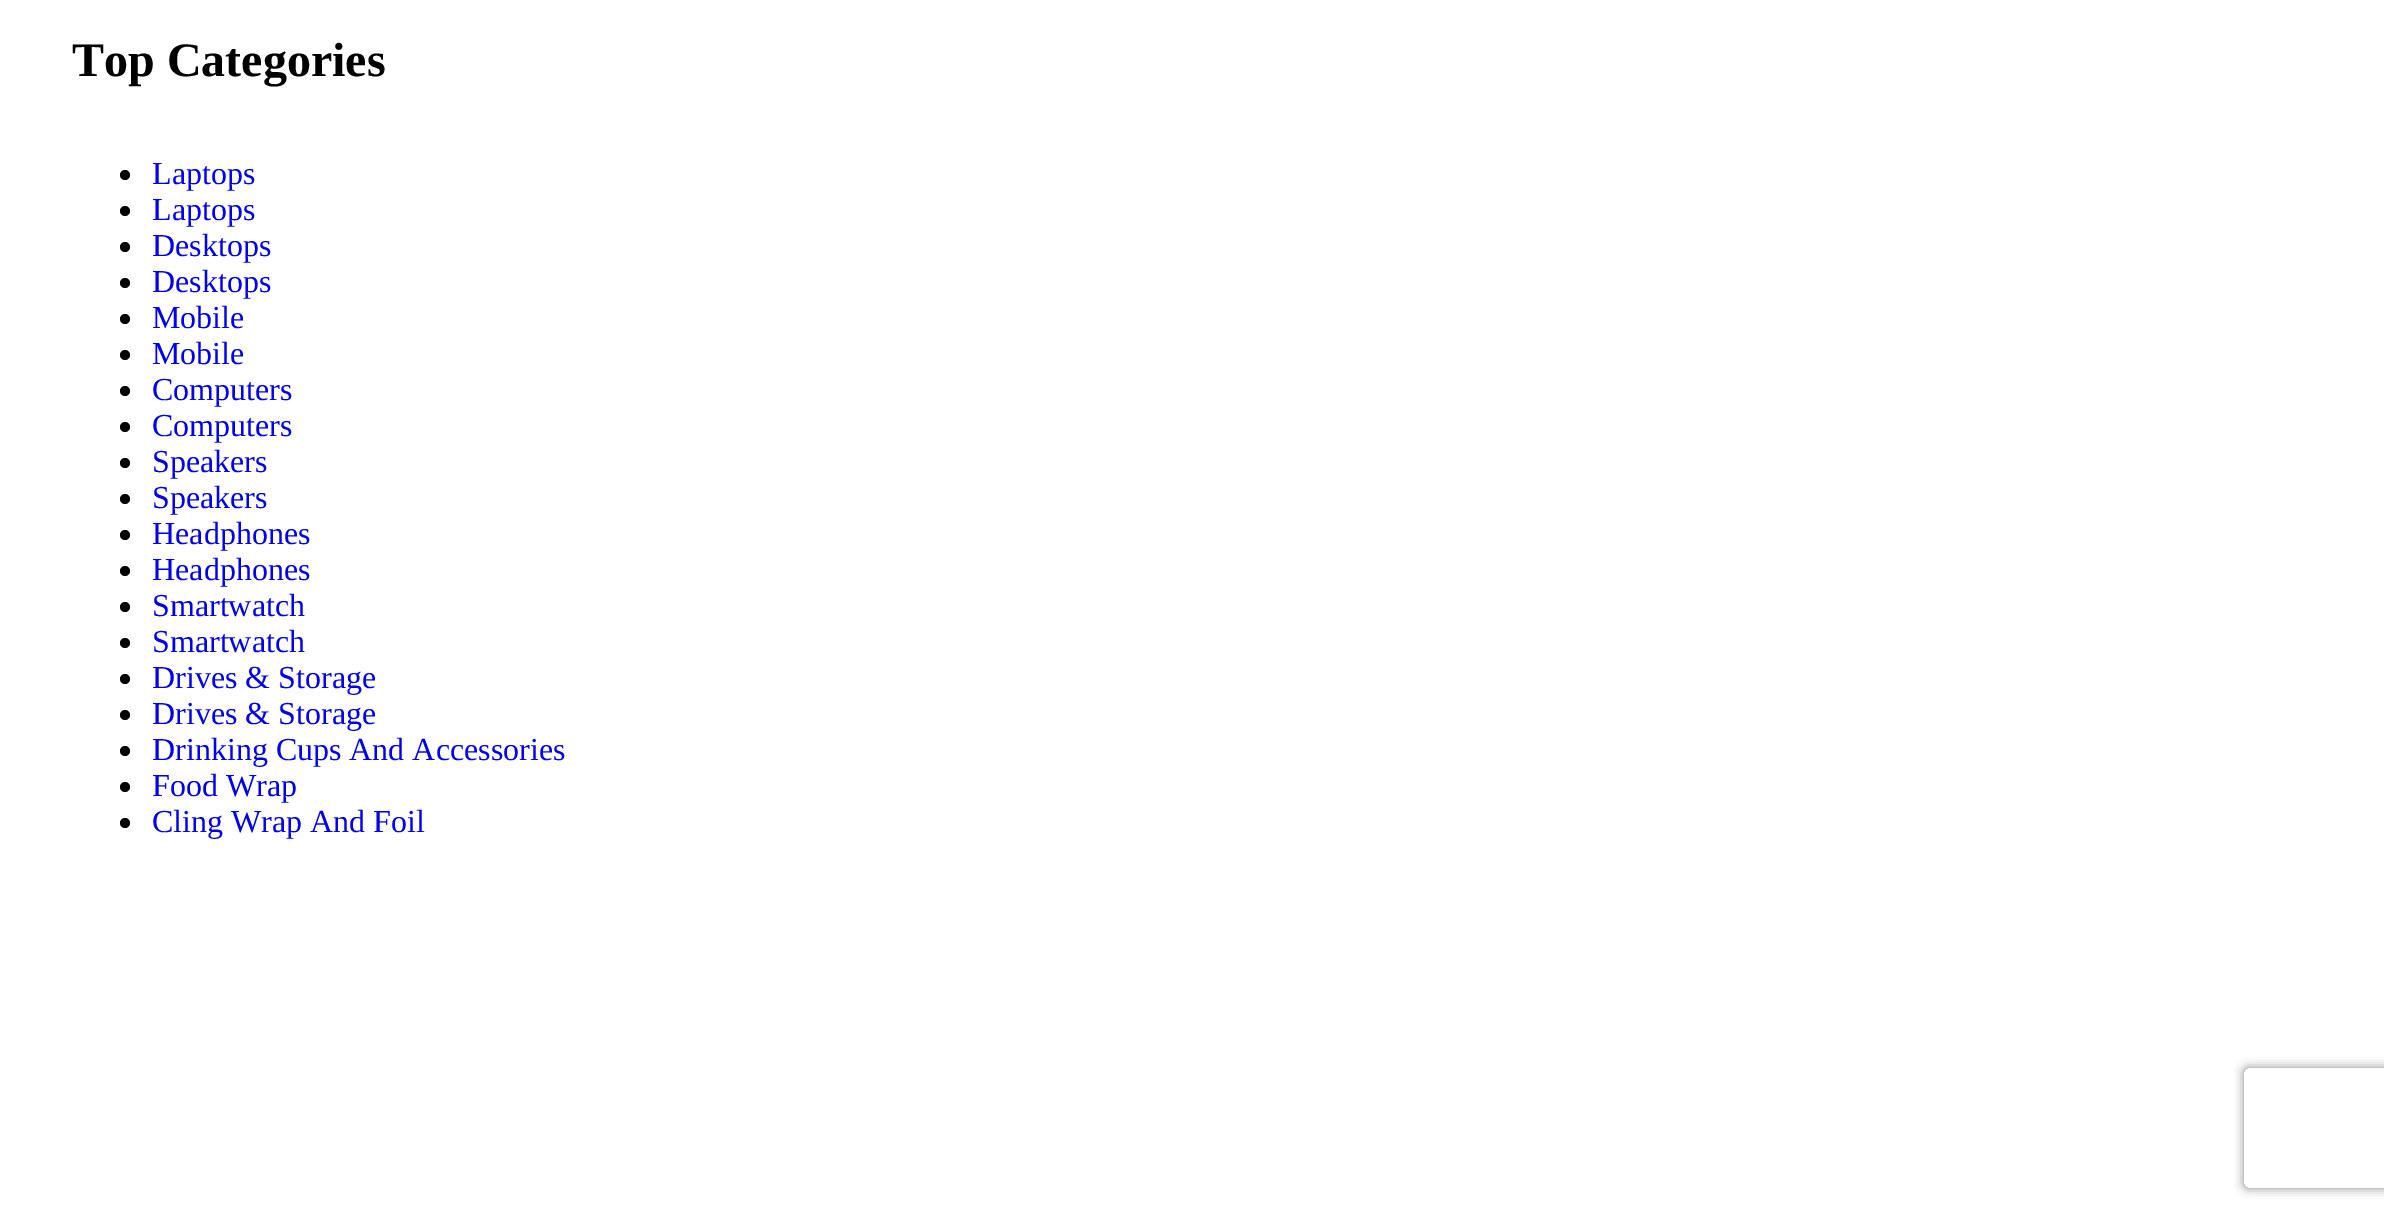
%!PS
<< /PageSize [2384 1215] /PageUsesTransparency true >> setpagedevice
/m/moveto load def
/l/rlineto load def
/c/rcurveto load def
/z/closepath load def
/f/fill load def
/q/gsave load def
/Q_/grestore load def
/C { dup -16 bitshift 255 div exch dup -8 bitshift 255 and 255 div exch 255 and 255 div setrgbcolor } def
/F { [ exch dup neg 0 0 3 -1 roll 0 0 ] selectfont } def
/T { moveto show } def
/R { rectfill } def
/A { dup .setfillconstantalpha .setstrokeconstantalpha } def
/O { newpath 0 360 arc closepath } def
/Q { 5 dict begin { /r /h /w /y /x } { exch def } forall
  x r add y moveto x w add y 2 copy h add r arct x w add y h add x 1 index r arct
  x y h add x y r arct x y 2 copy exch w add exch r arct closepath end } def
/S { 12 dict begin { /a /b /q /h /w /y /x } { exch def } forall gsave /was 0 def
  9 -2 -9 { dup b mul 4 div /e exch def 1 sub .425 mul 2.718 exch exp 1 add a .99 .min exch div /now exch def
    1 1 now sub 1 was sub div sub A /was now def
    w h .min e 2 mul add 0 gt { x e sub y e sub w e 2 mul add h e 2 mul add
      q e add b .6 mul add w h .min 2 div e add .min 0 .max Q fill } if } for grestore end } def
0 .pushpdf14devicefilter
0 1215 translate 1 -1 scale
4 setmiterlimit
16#FFFFFF C
0 0 2384 1215 R
/LiberationSerif-Bold 48 F
16#000000 C
(Top Categories) 72 76 T
125 175 5 O f
/LiberationSerif-Regular 32 F
16#0000EE C
(Laptops) 152 184 T
16#000000 C
125 211 5 O f
16#0000EE C
(Laptops) 152 220 T
16#000000 C
125 247 5 O f
16#0000EE C
(Desktops) 152 256 T
16#000000 C
125 283 5 O f
16#0000EE C
(Desktops) 152 292 T
16#000000 C
125 319 5 O f
16#0000EE C
(Mobile) 152 328 T
16#000000 C
125 355 5 O f
16#0000EE C
(Mobile) 152 364 T
16#000000 C
125 391 5 O f
16#0000EE C
(Computers) 152 400 T
16#000000 C
125 427 5 O f
16#0000EE C
(Computers) 152 436 T
16#000000 C
125 463 5 O f
16#0000EE C
(Speakers) 152 472 T
16#000000 C
125 499 5 O f
16#0000EE C
(Speakers) 152 508 T
16#000000 C
125 535 5 O f
16#0000EE C
(Headphones) 152 544 T
16#000000 C
125 571 5 O f
16#0000EE C
(Headphones) 152 580 T
16#000000 C
125 607 5 O f
16#0000EE C
(Smartwatch) 152 616 T
16#000000 C
125 643 5 O f
16#0000EE C
(Smartwatch) 152 652 T
16#000000 C
125 679 5 O f
16#0000EE C
(Drives & Storage) 152 688 T
16#000000 C
125 715 5 O f
16#0000EE C
(Drives & Storage) 152 724 T
16#000000 C
125 751 5 O f
16#0000EE C
(Drinking Cups And Accessories) 152 760 T
16#000000 C
125 787 5 O f
16#0000EE C
(Food Wrap) 152 796 T
16#000000 C
125 823 5 O f
16#0000EE C
(Cling Wrap And Foil) 152 832 T
q
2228 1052 m 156 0 l 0 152 l -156 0 l z 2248 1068 m 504 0 l 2 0 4 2 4 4 c 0 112 l 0 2 -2 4 -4 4 c -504 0 l -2 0 -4 -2 -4 -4 c 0 -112 l 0 -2 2 -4 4 -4 c z eoclip newpath
16#808080 C
2244 1068 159 120 4 5 1 S
Q_
.poppdf14devicefilter showpage
